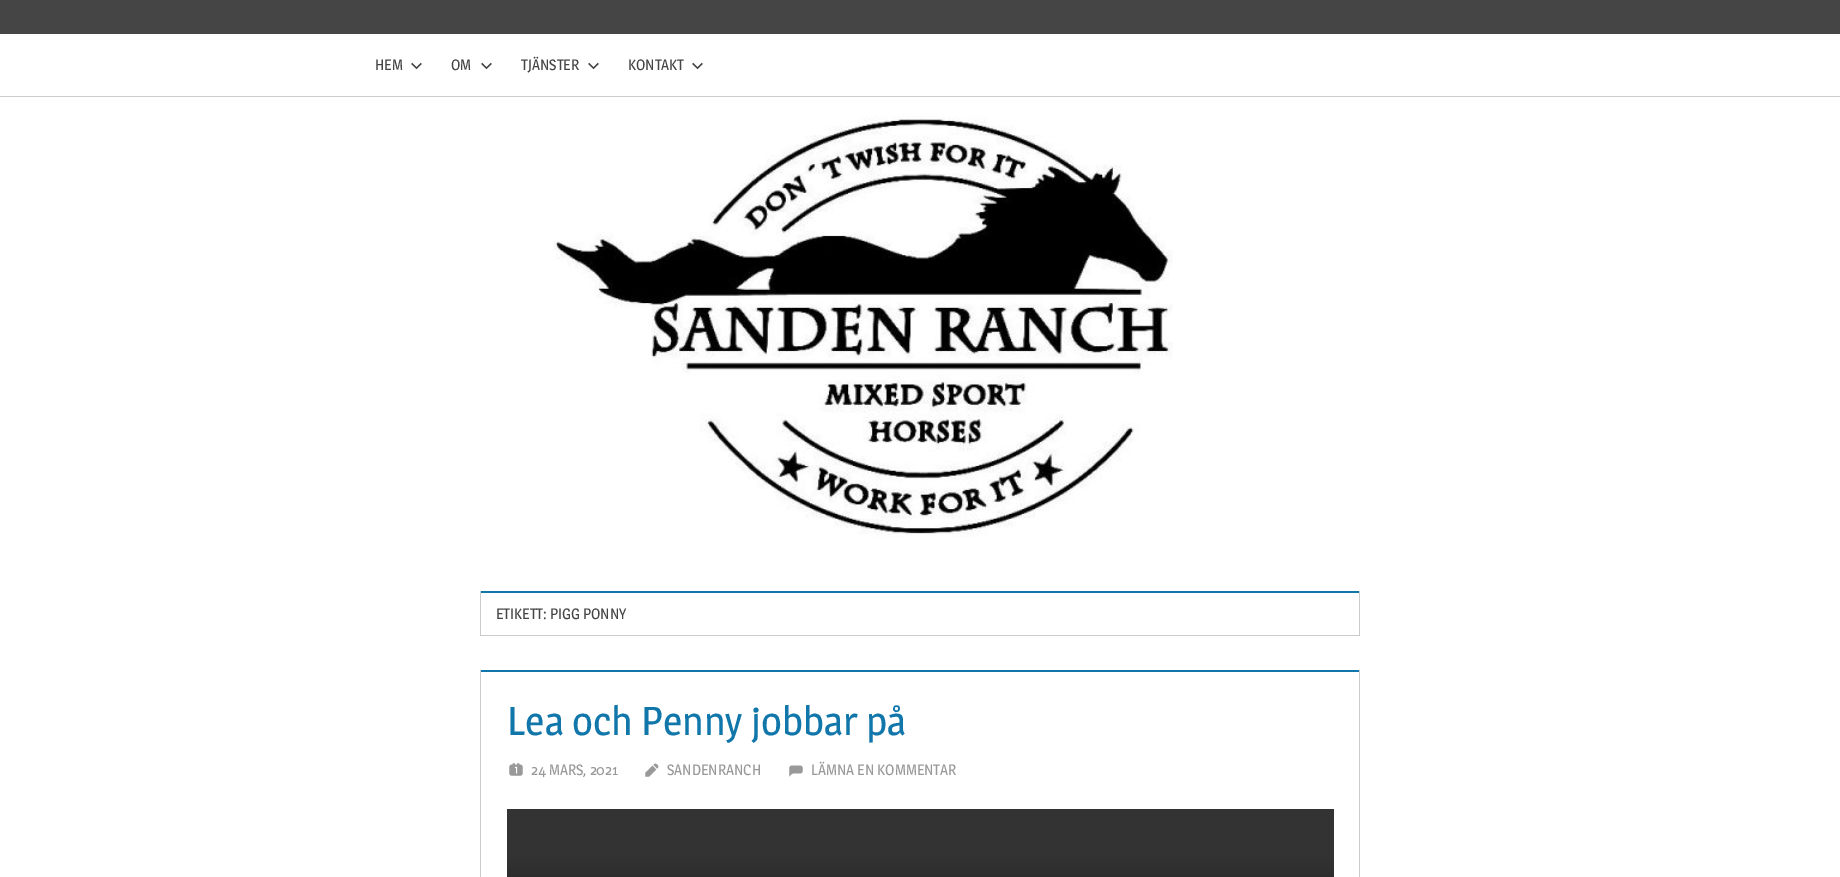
%!PS
<< /PageSize [1840 877] /PageUsesTransparency true >> setpagedevice
/m/moveto load def
/l/rlineto load def
/z/closepath load def
/f/fill load def
/C { dup -16 bitshift 255 div exch dup -8 bitshift 255 and 255 div exch 255 and 255 div setrgbcolor } def
/F { [ exch dup neg 0 0 3 -1 roll 0 0 ] selectfont } def
/T { moveto show } def
/R { rectfill } def
/A { dup .setfillconstantalpha .setstrokeconstantalpha } def
/I { 5 dict begin { /h /w /y /x /name } { exch def } forall
  gsave x y translate w h scale
  w h 8 [w 0 0 h 0 0] name (r) file false 3 colorimage grestore end } def
0 .pushpdf14devicefilter
0 877 translate 1 -1 scale
4 setmiterlimit
16#FFFFFF C
0 0 1840 877 R
16#454545 C
0 0 1840 34 R
16#CCCCCC C
0 96 1840 1 R
/Magra-Regular 15 F
16#454545 C
(HEM) 375 70 T
(1.rgb) 411 62 11 8 I
(OM) 451 70 T
(1.rgb) 481 62 11 8 I
(TJÄNSTER) 521 70 T
(1.rgb) 588 62 11 8 I
(KONTAKT) 628 70 T
(1.rgb) 692 62 11 8 I
(2.rgb) 553 116 620 422 I
16#CCCCCC C
1360 591 m 0 45 l -1 -1 l 0 -44 l z f
0.2 A
16#000000 C
1360 636 m -880 0 l 1 -1 l 878 0 l z f
480 636 m 0 -45 l 1 0 l 0 44 l z f
1 A
16#1177AA C
481 591 878 2 R
16#454545 C
(ETIKETT: PIGG PONNY) 496 619 T
16#1177AA C
481 670 878 2 R
16#CCCCCC C
1360 670 m 0 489 l -1 -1 l 0 -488 l z f
480 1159 m 0 -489 l 1 0 l 0 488 l z f
/Magra-Regular 40 F
16#1177AA C
(Lea och Penny jobbar på) 507 735 T
(3.rgb) 509 763 14 13 I
/Magra-Regular 15 F
16#999999 C
(24 MARS, 2021) 531 775 T
(4.rgb) 645 763 14 14 I
(SANDENRANCH) 667 775 T
(5.rgb) 789 765 14 12 I
(LÄMNA EN KOMMENTAR) 811 775 T
(6.rgb) 507 809 827 68 I
.poppdf14devicefilter showpage
